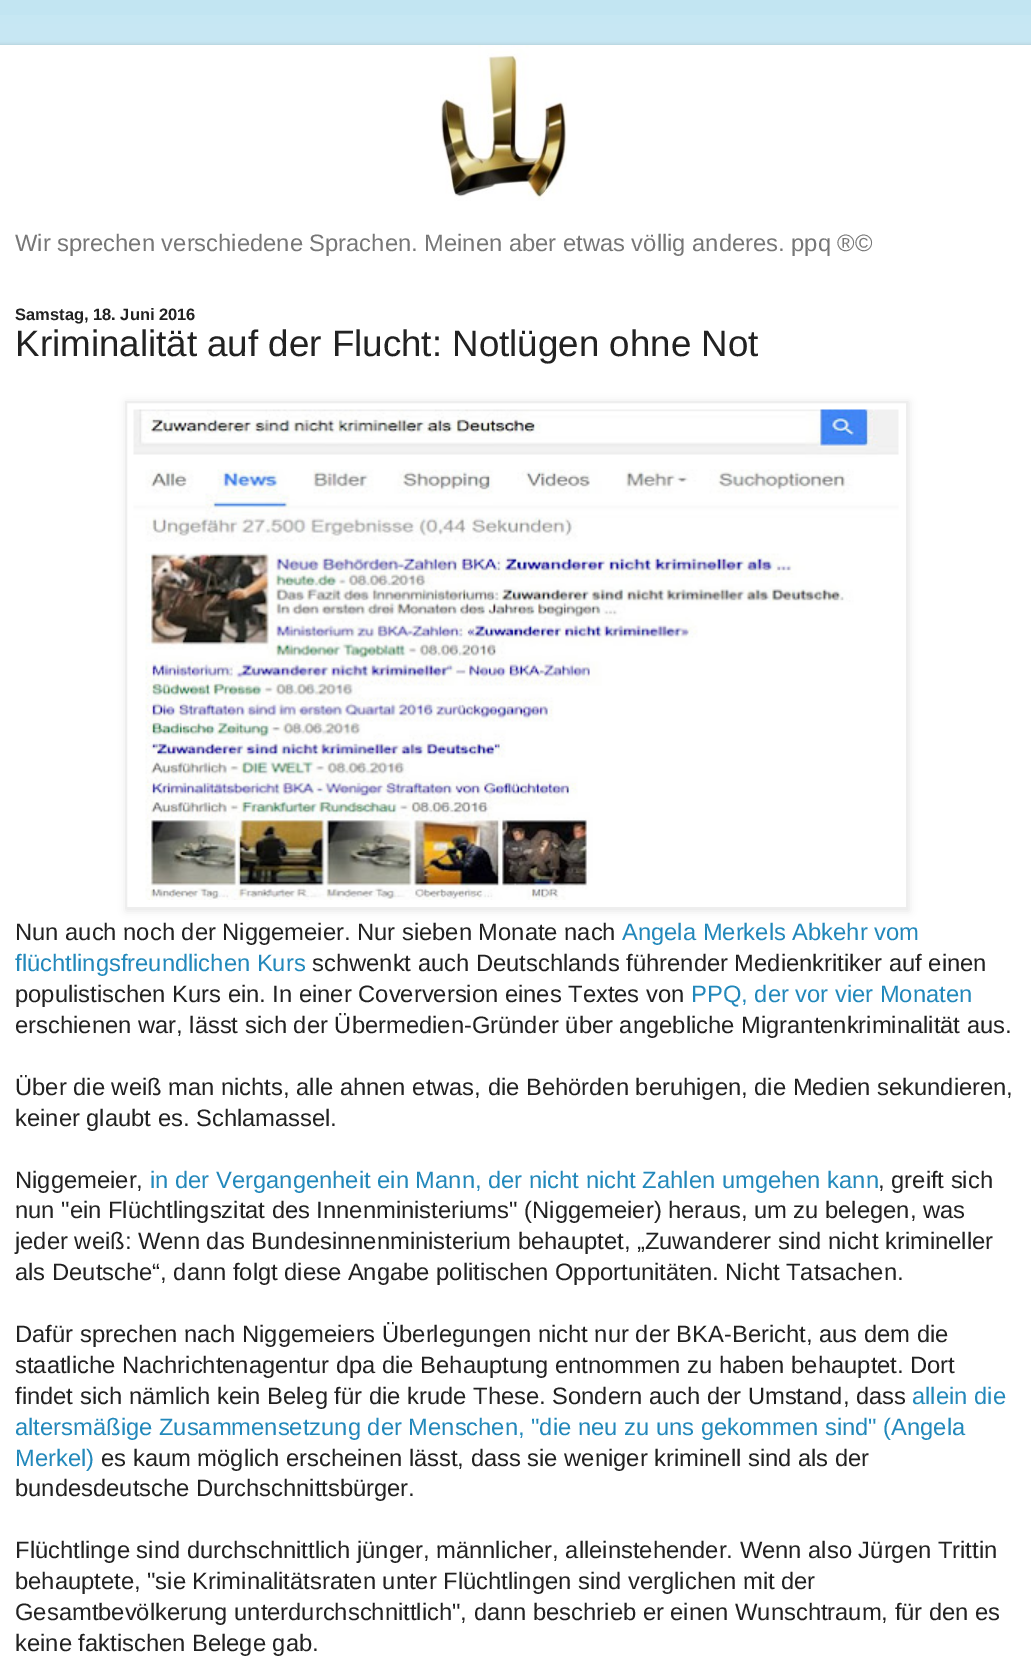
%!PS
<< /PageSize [1031 1669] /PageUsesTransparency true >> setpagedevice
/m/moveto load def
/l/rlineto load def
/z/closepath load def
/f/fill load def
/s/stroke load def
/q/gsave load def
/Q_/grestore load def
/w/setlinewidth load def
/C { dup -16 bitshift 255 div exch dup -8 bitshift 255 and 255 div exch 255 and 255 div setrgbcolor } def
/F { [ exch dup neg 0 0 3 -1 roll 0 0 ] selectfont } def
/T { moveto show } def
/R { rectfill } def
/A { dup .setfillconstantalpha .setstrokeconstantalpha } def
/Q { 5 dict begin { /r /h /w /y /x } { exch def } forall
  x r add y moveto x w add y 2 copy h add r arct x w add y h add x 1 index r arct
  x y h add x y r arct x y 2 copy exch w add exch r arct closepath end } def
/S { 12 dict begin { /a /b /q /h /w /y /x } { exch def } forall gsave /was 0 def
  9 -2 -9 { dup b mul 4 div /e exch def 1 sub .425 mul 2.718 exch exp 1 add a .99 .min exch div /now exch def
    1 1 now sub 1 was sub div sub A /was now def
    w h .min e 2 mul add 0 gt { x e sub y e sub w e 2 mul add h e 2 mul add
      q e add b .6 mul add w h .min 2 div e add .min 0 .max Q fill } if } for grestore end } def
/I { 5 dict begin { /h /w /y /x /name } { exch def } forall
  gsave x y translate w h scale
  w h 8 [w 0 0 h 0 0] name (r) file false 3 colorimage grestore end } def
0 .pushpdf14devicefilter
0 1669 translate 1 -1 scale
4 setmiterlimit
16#C2E5F2 C
0 0 1031 1669 R
(1.rgb) 0 15 1031 30 I
16#000000 C
0 45 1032 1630 0 2 .15 S
16#FFFFFF C
0 45 1031 1624 R
(2.rgb) 440 45 127 156 I
/LiberationSans-Regular 23.75 F
16#777777 C
(Wir sprechen verschiedene Sprachen. Meinen aber etwas völlig anderes. ppq ®©) 15 251 T
/LiberationSans-Bold 16.5 F
16#222222 C
(Samstag, 18. Juni 2016) 15 320 T
/LiberationSans-Regular 36.75 F
(Kriminalität auf der Flucht: Notlügen ohne Not) 15 356 T
16#000000 C
126 402 783 509 0 4 .1 S
16#FFFFFF C
126 402 m 781 0 l 0 506 l -781 0 l z q f Q_
16#EEEEEE C
2 w
s
(3.rgb) 133 409 766 491 I
/LiberationSans-Regular 23.75 F
16#222222 C
(Nun auch noch der Niggemeier. Nur sieben Monate nach) 15 940 T
16#2288BB C
(Angela Merkels Abkehr vom) 622 940 T
(flüchtlingsfreundlichen Kurs) 15 971 T
16#222222 C
(schwenkt auch Deutschlands führender Medienkritiker auf einen) 312 971 T
(populistischen Kurs ein. In einer Coverversion eines Textes von) 15 1002 T
16#2288BB C
(PPQ, der vor vier Monaten) 691 1002 T
16#222222 C
(erschienen war, lässt sich der Übermedien-Gründer über angebliche Migrantenkriminalität aus.) 15 1033 T
(Über die weiß man nichts, alle ahnen etwas, die Behörden beruhigen, die Medien sekundieren,) 15 1095 T
(keiner glaubt es. Schlamassel.) 15 1126 T
(Niggemeier,) 15 1188 T
16#2288BB C
(in der Vergangenheit ein Mann, der nicht nicht Zahlen umgehen kann) 150 1188 T
16#222222 C
(, greift sich) 878 1188 T
(nun "ein Flüchtlingszitat des Innenministeriums" \(Niggemeier\) heraus, um zu belegen, was) 15 1218 T
(jeder weiß: Wenn das Bundesinnenministerium behauptet, „Zuwanderer sind nicht krimineller) 15 1249 T
(als Deutsche“, dann folgt diese Angabe politischen Opportunitäten. Nicht Tatsachen.) 15 1280 T
(Dafür sprechen nach Niggemeiers Überlegungen nicht nur der BKA-Bericht, aus dem die) 15 1342 T
(staatliche Nachrichtenagentur dpa die Behauptung entnommen zu haben behauptet. Dort) 15 1373 T
(findet sich nämlich kein Beleg für die krude These. Sondern auch der Umstand, dass) 15 1404 T
16#2288BB C
(allein die) 912 1404 T
(altersmäßige Zusammensetzung der Menschen, "die neu zu uns gekommen sind" \(Angela) 15 1435 T
(Merkel\)) 15 1466 T
16#222222 C
(es kaum möglich erscheinen lässt, dass sie weniger kriminell sind als der) 101 1466 T
(bundesdeutsche Durchschnittsbürger.) 15 1496 T
(Flüchtlinge sind durchschnittlich jünger, männlicher, alleinstehender. Wenn also Jürgen Trittin) 15 1558 T
(behauptete, "sie Kriminalitätsraten unter Flüchtlingen sind verglichen mit der) 15 1589 T
(Gesamtbevölkerung unterdurchschnittlich", dann beschrieb er einen Wunschtraum, für den es) 15 1620 T
(keine faktischen Belege gab.) 15 1651 T
.poppdf14devicefilter showpage
